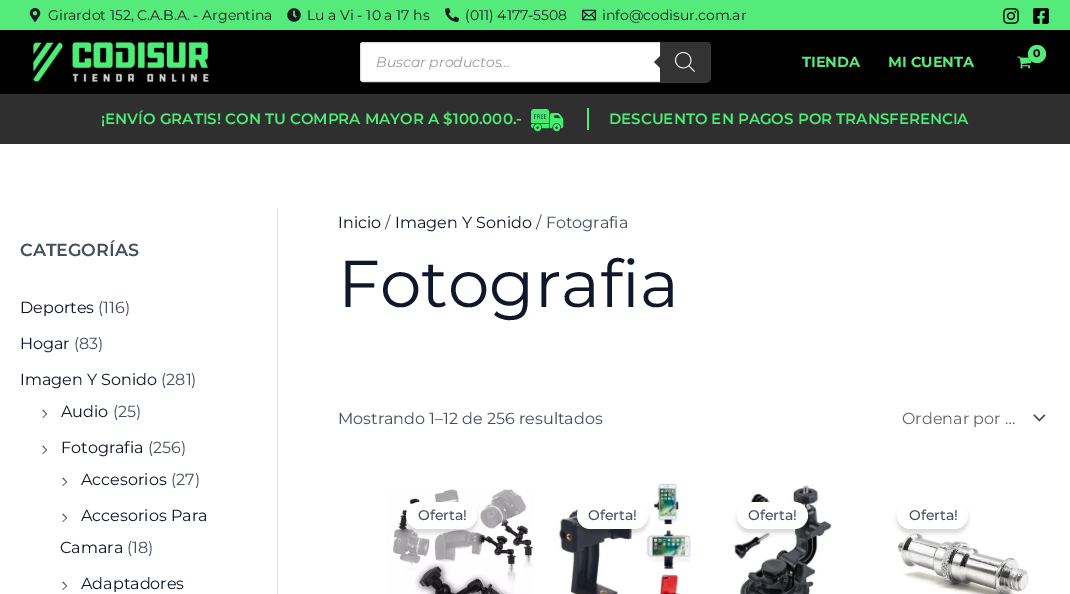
%!PS
<< /PageSize [1070 594] /PageUsesTransparency true >> setpagedevice
/m/moveto load def
/l/rlineto load def
/c/rcurveto load def
/z/closepath load def
/f/fill load def
/s/stroke load def
/q/gsave load def
/Q_/grestore load def
/C { dup -16 bitshift 255 div exch dup -8 bitshift 255 and 255 div exch 255 and 255 div setrgbcolor } def
/F { [ exch dup neg 0 0 3 -1 roll 0 0 ] selectfont } def
/T { moveto show } def
/R { rectfill } def
/A { dup .setfillconstantalpha .setstrokeconstantalpha } def
/O { newpath 0 360 arc closepath } def
/Q { 5 dict begin { /r /h /w /y /x } { exch def } forall
  x r add y moveto x w add y 2 copy h add r arct x w add y h add x 1 index r arct
  x y h add x y r arct x y 2 copy exch w add exch r arct closepath end } def
/S { 12 dict begin { /a /b /q /h /w /y /x } { exch def } forall gsave /was 0 def
  9 -2 -9 { dup b mul 4 div /e exch def 1 sub .425 mul 2.718 exch exp 1 add a .99 .min exch div /now exch def
    1 1 now sub 1 was sub div sub A /was now def
    w h .min e 2 mul add 0 gt { x e sub y e sub w e 2 mul add h e 2 mul add
      q e add b .6 mul add w h .min 2 div e add .min 0 .max Q fill } if } for grestore end } def
/I { 5 dict begin { /h /w /y /x /name } { exch def } forall
  gsave x y translate w h scale
  w h 8 [w 0 0 h 0 0] name (r) file false 3 colorimage grestore end } def
0 .pushpdf14devicefilter
0 594 translate 1 -1 scale
4 setmiterlimit
16#FFFFFF C
0 0 1070 594 R
16#54EB7A C
0 0 1070 30 R
(1.rgb) 29 8 12 14 I
/Montserrat-Regular 14 F
16#181823 C
(Girardot 152, C.A.B.A. - Argentina) 48 20 T
(2.rgb) 287 8 14 14 I
(Lu a Vi - 10 a 17 hs) 307 20 T
(3.rgb) 445 8 14 14 I
(\(011\) 4177-5508) 465 20 T
(4.rgb) 582 9 14 12 I
(info@codisur.com.ar) 602 20 T
(5.rgb) 1003 8 16 16 I
(6.rgb) 1033 8 16 16 I
16#000000 C
0 30 1070 64 R
(7.rgb) 33 42 176 41 I
16#FFFFFF C
360.5 42.5 349 39 2.5 Q q f Q_
16#DDDDDD C
s
/Montserrat-Italic 14 F
16#999999 C
(Buscar productos...) 376 67 T
16#333333 C
660 42 m 48 0 l 1 0 2 1 2 2 c 0 36 l 0 1 -1 2 -2 2 c -48 0 l z f
662 54 m 0 16 l -8 -8 l z f
(8.rgb) 675 52 20 20 I
(9.rgb) 1017 56 15 13 I
16#000000 C
1029 46 18 18 9 1.5 .3 S
16#54EB7A C
1037 54 9 O f
/Montserrat-Bold 11 F
16#000000 C
(0) 1033 57 T
/Montserrat-Bold 14.5 F
16#54EB7A C
(TIENDA) 802 67 T
(MI CUENTA) 888 67 T
16#2F2F2F C
0 94 1070 50 R
/Montserrat-SemiBold 15 F
16#4BED75 C
(¡ENVÍO GRATIS! CON TU COMPRA MAYOR A $100.000.-) 101 124 T
(10.rgb) 531 109 33 23 I
16#54EB7A C
587 108 2 22 R
16#4BED75 C
(DESCUENTO EN PAGOS POR TRANSFERENCIA) 609 124 T
16#E2E2E2 C
277 208 1 386 R
/Montserrat-SemiBold 17.5 F
16#454F5E C
(CATEGORÍAS) 20 256 T
/Montserrat-Regular 16 F
16#0F172A C
(Deportes) 20 313 T
16#454F5E C
(\(116\)) 98 313 T
16#0F172A C
(Hogar) 20 349 T
16#454F5E C
(\(83\)) 74 349 T
16#0F172A C
(Imagen Y Sonido) 20 385 T
16#454F5E C
(\(281\)) 161 385 T
43 409.5 m 4 4.5 l -.5 .5 l -4 -4 l z f
46.5 413.5 m .5 .5 l -4 4 l -.5 -.5 l z f
16#0F172A C
(Audio) 61 417 T
16#454F5E C
(\(25\)) 113 417 T
43 445.5 m 4 4.5 l -.5 .5 l -4 -4 l z f
46.5 449.5 m .5 .5 l -4 4 l -.5 -.5 l z f
16#0F172A C
(Fotografia) 61 453 T
16#454F5E C
(\(256\)) 148 453 T
63 477.5 m 4 4.5 l -.5 .5 l -4 -4 l z f
66.5 481.5 m .5 .5 l -4 4 l -.5 -.5 l z f
16#0F172A C
(Accesorios) 81 485 T
16#454F5E C
(\(27\)) 171 485 T
63 513.5 m 4 4.5 l -.5 .5 l -4 -4 l z f
66.5 517.5 m .5 .5 l -4 4 l -.5 -.5 l z f
16#0F172A C
(Accesorios Para) 81 521 T
(Camara) 60 553 T
16#454F5E C
(\(18\)) 127 553 T
63 581.5 m 4 4.5 l -.5 .5 l -4 -4 l z f
66.5 585.5 m .5 .5 l -4 4 l -.5 -.5 l z f
16#0F172A C
(Adaptadores) 81 589 T
(Inicio) 338 228 T
16#454F5E C
(/) 385 228 T
16#0F172A C
(Imagen Y Sonido) 395 228 T
16#454F5E C
(/ Fotografia) 536 228 T
/Montserrat-Regular 66 F
16#0F172A C
(Fotografia) 338 307 T
/Montserrat-Regular 16 F
16#454F5E C
(Mostrando 1–12 de 256 resultados) 338 424 T
(11.rgb) 1033 414 13 8 I
16#666666 C
(Ordenar por …) 902 424 T
(12.rgb) 386 489 148 105 I
16#000000 C
406 506 71 27 13.5 2 .15 S
16#FFFFFF C
406 502 71 27 13.5 Q f
/Montserrat-Medium 14 F
16#454F5E C
(Oferta!) 418 520 T
(13.rgb) 557 483 134 111 I
16#000000 C
577 506 71 27 13.5 2 .15 S
16#FFFFFF C
577 502 71 27 13.5 Q f
16#454F5E C
(Oferta!) 588 520 T
(14.rgb) 734 485 98 109 I
16#000000 C
737 506 71 27 13.5 2 .15 S
16#FFFFFF C
737 502 71 27 13.5 Q f
16#454F5E C
(Oferta!) 748 520 T
(15.rgb) 898 513 131 81 I
16#000000 C
897 506 71 27 13.5 2 .15 S
16#FFFFFF C
897 502 71 27 13.5 Q f
16#454F5E C
(Oferta!) 909 520 T
.poppdf14devicefilter showpage
